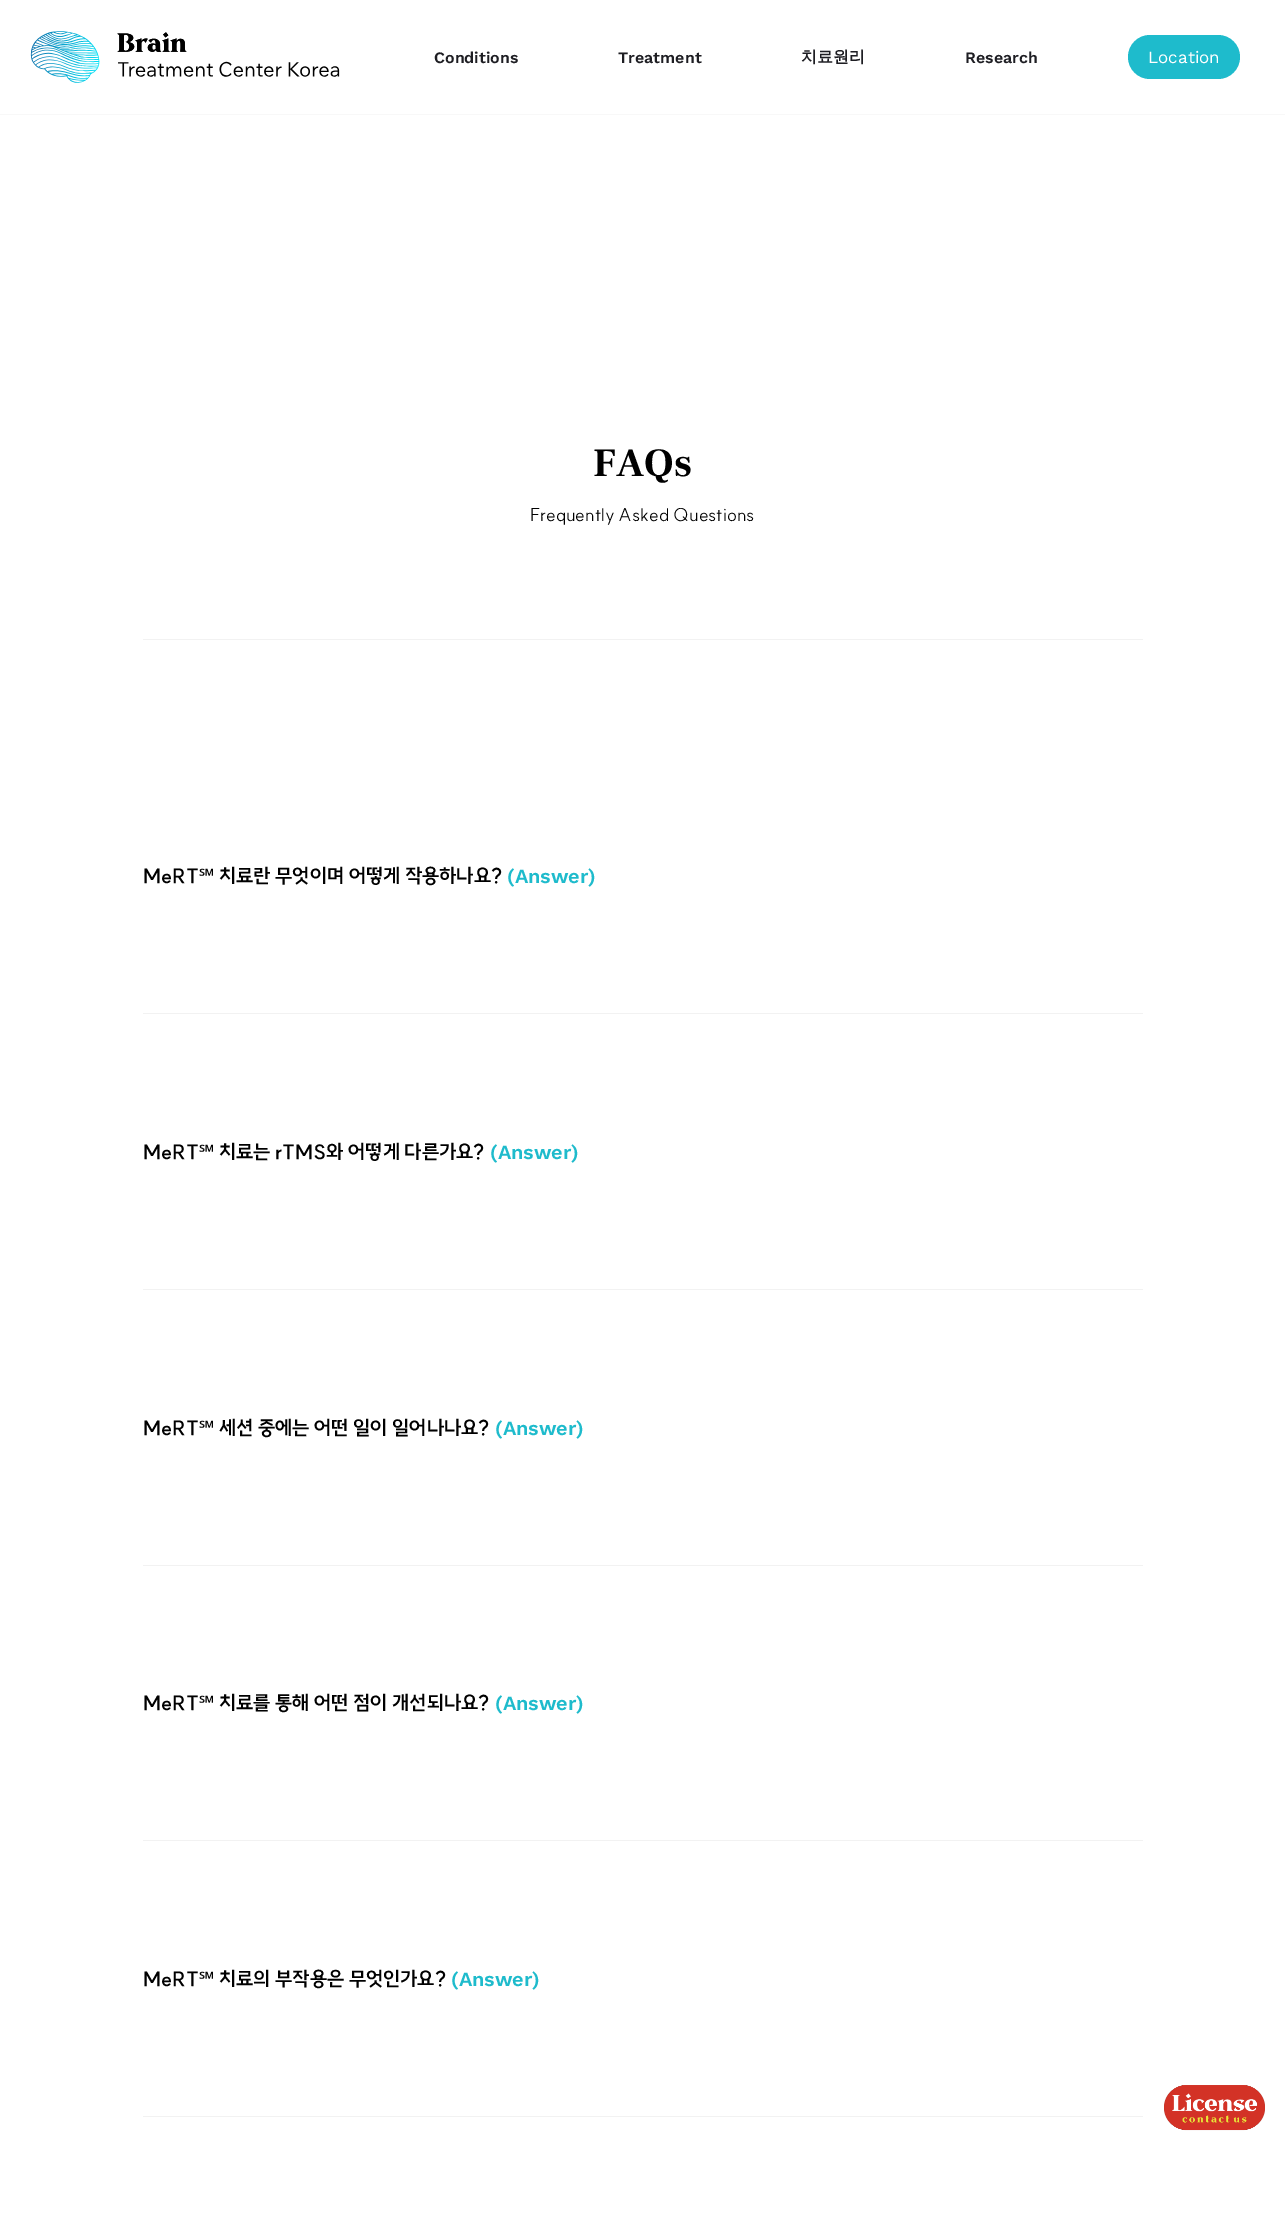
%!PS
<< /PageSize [1285 2221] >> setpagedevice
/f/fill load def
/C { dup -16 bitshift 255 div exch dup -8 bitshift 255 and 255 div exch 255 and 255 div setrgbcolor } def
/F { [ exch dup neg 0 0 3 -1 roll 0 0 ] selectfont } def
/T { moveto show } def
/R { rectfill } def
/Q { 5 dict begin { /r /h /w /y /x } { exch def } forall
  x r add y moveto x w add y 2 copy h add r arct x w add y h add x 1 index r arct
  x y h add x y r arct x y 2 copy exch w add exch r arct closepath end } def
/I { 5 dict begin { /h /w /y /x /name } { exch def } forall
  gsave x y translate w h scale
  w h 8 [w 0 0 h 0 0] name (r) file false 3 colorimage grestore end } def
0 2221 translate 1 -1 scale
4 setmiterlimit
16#FFFFFF C
0 0 1285 2221 R
16#F8F8F8 C
0 114 1285 1 R
(1.rgb) 30 31 310 52 I
/WorkSans-SemiBold 16 F
16#1E1E23 C
(Conditions) 434 63 T
(Treatment) 618 63 T
/WenQuanYiZenHei-Bold 16 F
(치료원리) 801 62 T
/WorkSans-SemiBold 16 F
(Research) 965 63 T
16#1EBBCC C
1128 35 112 44 22 Q f
/WorkSans-Regular 17 F
16#FFFFFF C
(Location) 1148 63 T
/FrankRuhlLibre-Bold 40 F
16#000000 C
(FAQs) 593 476 T
/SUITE-Light 18 F
(Frequently Asked Questions) 530 521 T
16#F2F2F2 C
143 639 1000 1 R
/SUITE-Bold 20 F
16#000000 C
(MeRT) 143 883 T
/NotoSans-Bold 20 F
(℠) 199 883 T
/SUITE-Bold 20 F
(치료란 무엇이며 어떻게 작용하나요?) 219 883 T
/WorkSans-SemiBold 20 F
16#1EBBCC C
(\(Answer\)) 507 883 T
16#F2F2F2 C
143 1013 1000 1 R
/SUITE-Bold 20 F
16#000000 C
(MeRT) 143 1159 T
/NotoSans-Bold 20 F
(℠) 199 1159 T
/SUITE-Bold 20 F
(치료는 rTMS와 어떻게 다른가요?) 219 1159 T
/WorkSans-SemiBold 20 F
16#1EBBCC C
(\(Answer\)) 490 1159 T
16#F2F2F2 C
143 1289 1000 1 R
/SUITE-Bold 20 F
16#000000 C
(MeRT) 143 1435 T
/NotoSans-Bold 20 F
(℠) 199 1435 T
/SUITE-Bold 20 F
(세션 중에는 어떤 일이 일어나나요?) 219 1435 T
/WorkSans-SemiBold 20 F
16#1EBBCC C
(\(Answer\)) 495 1435 T
16#F2F2F2 C
143 1565 1000 1 R
/SUITE-Bold 20 F
16#000000 C
(MeRT) 143 1710 T
/NotoSans-Bold 20 F
(℠) 199 1710 T
/SUITE-Bold 20 F
(치료를 통해 어떤 점이 개선되나요?) 219 1710 T
/WorkSans-SemiBold 20 F
16#1EBBCC C
(\(Answer\)) 495 1710 T
16#F2F2F2 C
143 1840 1000 1 R
/SUITE-Bold 20 F
16#000000 C
(MeRT) 143 1986 T
/NotoSans-Bold 20 F
(℠) 199 1986 T
/SUITE-Bold 20 F
(치료의 부작용은 무엇인가요?) 219 1986 T
/WorkSans-SemiBold 20 F
16#1EBBCC C
(\(Answer\)) 451 1986 T
16#F2F2F2 C
143 2116 1000 1 R
(2.rgb) 1164 2085 101 46 I
showpage
